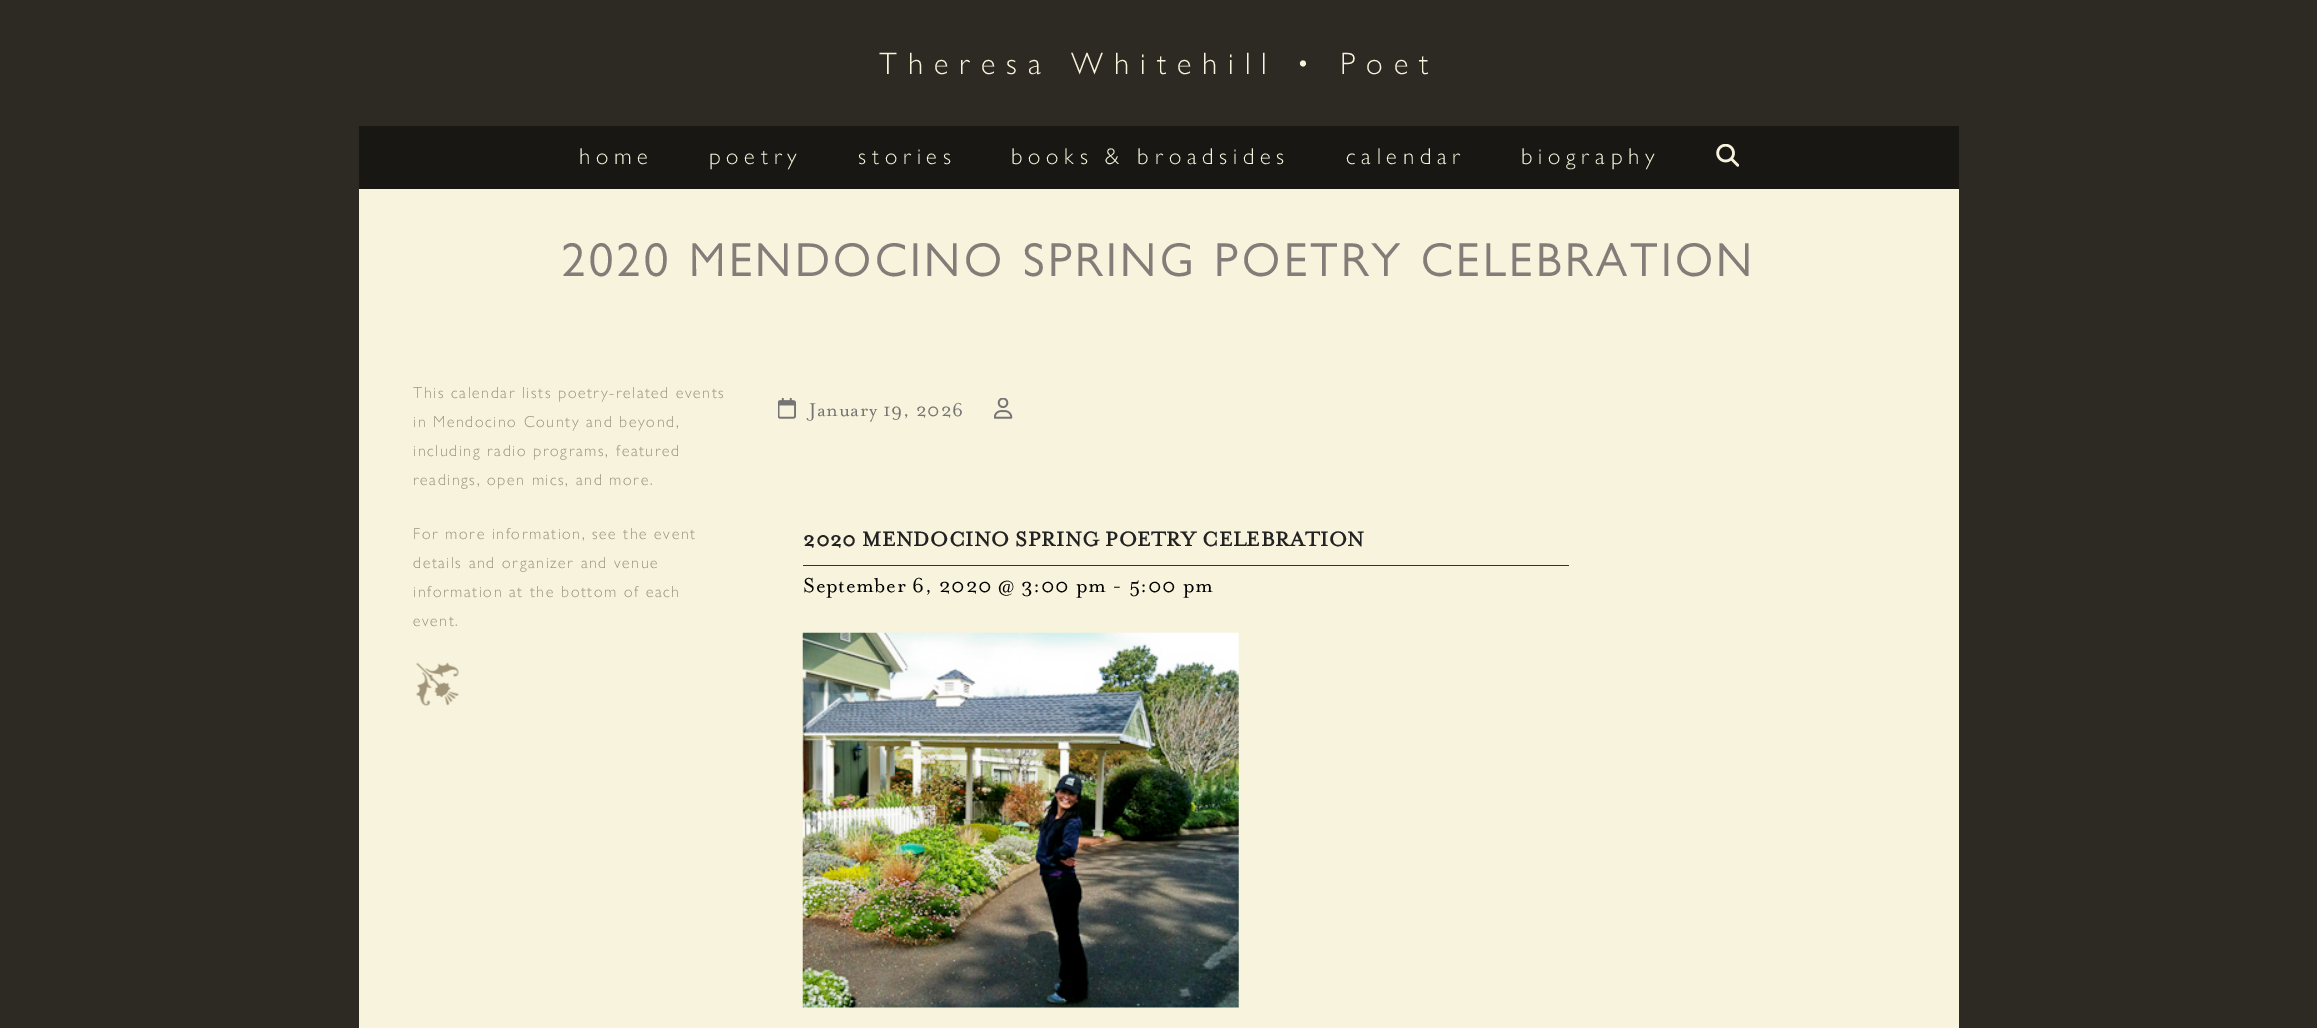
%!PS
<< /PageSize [2317 1028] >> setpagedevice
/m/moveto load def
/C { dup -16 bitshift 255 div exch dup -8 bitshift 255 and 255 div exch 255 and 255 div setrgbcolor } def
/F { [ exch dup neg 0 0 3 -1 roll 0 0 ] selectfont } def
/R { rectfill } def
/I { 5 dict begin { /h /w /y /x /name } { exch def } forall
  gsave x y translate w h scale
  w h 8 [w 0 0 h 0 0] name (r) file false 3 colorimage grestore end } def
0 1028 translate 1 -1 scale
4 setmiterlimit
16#2D2A23 C
0 0 2317 1028 R
16#F7F3DC C
359 189 1600 839 R
/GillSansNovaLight-Light 31 F
879 74 m 10.9 0 (Theresa Whitehill • Poet) ashow
16#191713 C
359 126 1600 63 R
/GillSansNovaLight-Light 23 F
16#F7F3DC C
579 164 m 5.75 0 (home) ashow
709 164 m 5.75 0 (poetry) ashow
858 164 m 5.75 0 (stories) ashow
1011 164 m 5.75 0 (books & broadsides) ashow
1346 164 m 5.75 0 (calendar) ashow
1521 164 m 5.75 0 (biography) ashow
(1.rgb) 1716 144 23 23 I
/GillSansNovaLight-Bold 46 F
16#827D78 C
561 276 m 4.6 0 (2020 MENDOCINO SPRING POETRY CELEBRATION) ashow
/GillSansNovaLight-Light 16.1 F
16#9B9479 C
413 398 m 1.6 0 (This calendar lists poetry-related events) ashow
413 427 m 1.6 0 (in Mendocino County and beyond,) ashow
413 456 m 1.6 0 (including radio programs, featured) ashow
413 485 m 1.6 0 (readings, open mics, and more.) ashow
413 539 m 1.6 0 (For more information, see the event) ashow
413 568 m 1.6 0 (details and organizer and venue) ashow
413 597 m 1.6 0 (information at the bottom of each) ashow
413 626 m 1.6 0 (event.) ashow
(2.rgb) 416 662 43 44 I
(3.rgb) 778 398 18 21 I
/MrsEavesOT-Regular 21.25 F
16#757575 C
809 416 m .6 0 (January 19, 2026) ashow
(4.rgb) 994 398 19 21 I
16#9B0707 C
803 565 766 1 R
/MrsEavesOT-Bold 23 F
16#222222 C
803 546 m .6 0 (2020 MENDOCINO SPRING POETRY CELEBRATION) ashow
/MrsEavesOT-Regular 23 F
16#000000 C
803 592 m .6 0 (September 6, 2020 @ 3:00 pm - 5:00 pm) ashow
(5.rgb) 802 632 437 376 I
showpage
